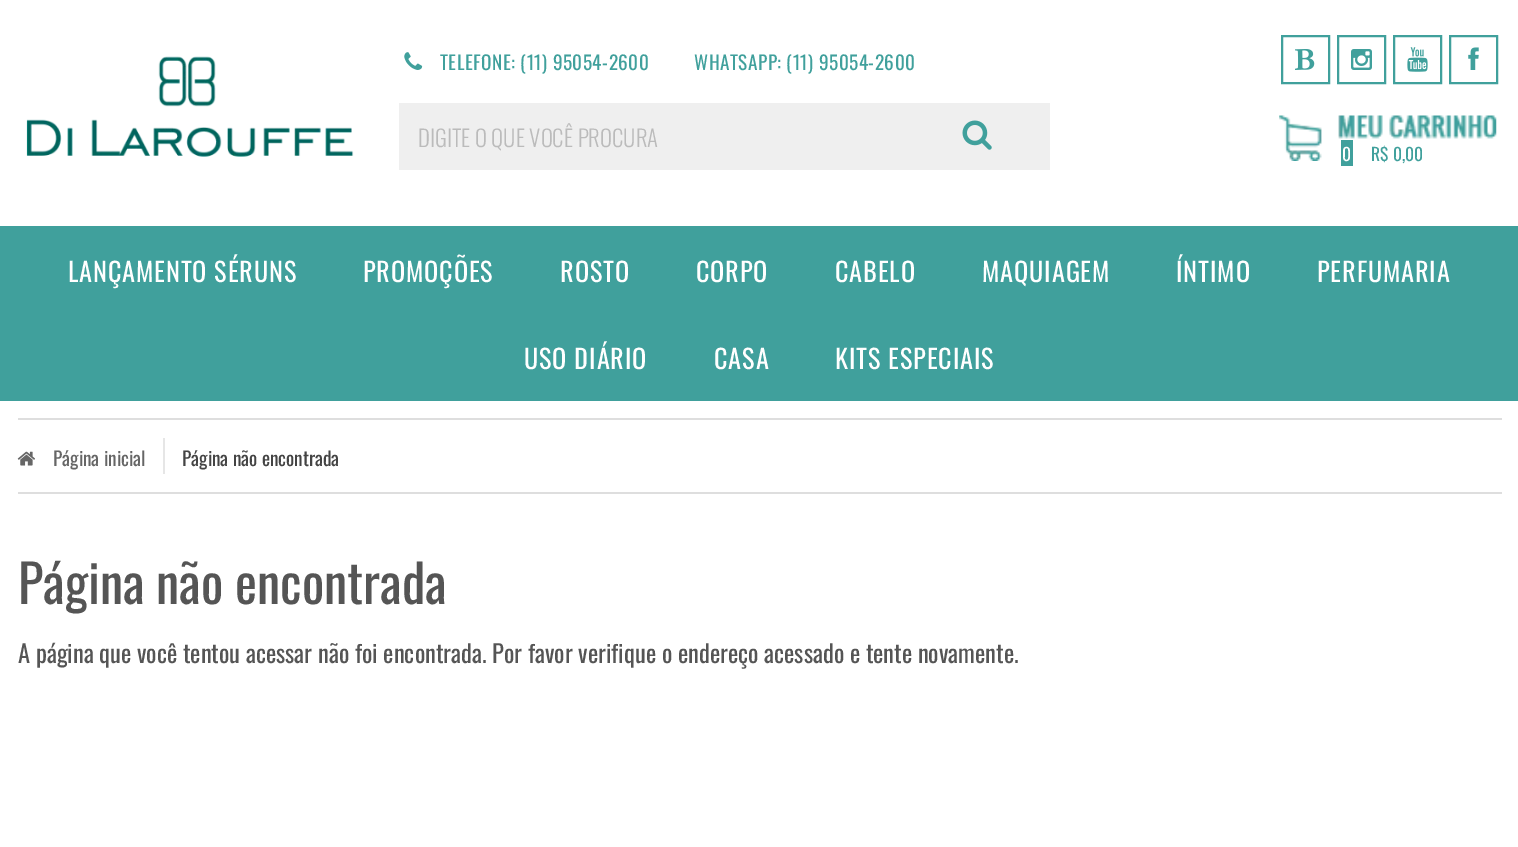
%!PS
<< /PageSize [1518 847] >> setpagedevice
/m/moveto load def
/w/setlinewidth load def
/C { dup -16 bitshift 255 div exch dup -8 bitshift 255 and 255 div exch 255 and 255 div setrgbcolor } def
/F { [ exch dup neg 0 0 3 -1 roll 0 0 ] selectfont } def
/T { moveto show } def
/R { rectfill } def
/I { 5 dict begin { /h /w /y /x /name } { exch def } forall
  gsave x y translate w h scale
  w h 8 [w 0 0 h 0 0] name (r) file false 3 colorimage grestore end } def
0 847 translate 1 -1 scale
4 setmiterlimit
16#FFFFFF C
0 0 1518 847 R
(1.rgb) 26 56 328 101 I
(2.rgb) 404 52 19 18 I
/Oswald-Regular 19.25 F
16#40A09C C
440 70 m .5 0 (TELEFONE: \(11\) 95054-2600) ashow
694 70 m .5 0 (WHATSAPP: \(11\) 95054-2600) ashow
2 w
1282 36 47 47 rectstroke
(3.rgb) 1295 49 20 21 I
1338 36 47 47 rectstroke
(4.rgb) 1351 49 21 21 I
1394 36 47 47 rectstroke
(5.rgb) 1407 47 21 25 I
1450 36 47 47 rectstroke
(6.rgb) 1468 47 11 23 I
16#EFEFEF C
399 103 651 67 R
/Oswald-Light 22.75 F
16#BBBBBB C
(DIGITE O QUE VOCÊ PROCURA) 418 147 T
(7.rgb) 962 120 30 30 I
(8.rgb) 1279 115 218 46 I
16#40A09C C
1341 140 12 26 R
/Oswald-Regular 17.5 F
16#FFFFFF C
(0) 1342 161 T
16#40A09C C
(R$ 0,00) 1371 161 T
0 226 1518 175 R
/Oswald-Regular 26.25 F
16#FFFFFF C
68 282 m .9 0 (LANÇAMENTO SÉRUNS) ashow
363 282 m .9 0 (PROMOÇÕES) ashow
560 282 m .9 0 (ROSTO) ashow
696 282 m .9 0 (CORPO) ashow
835 282 m .9 0 (CABELO) ashow
982 282 m .9 0 (MAQUIAGEM) ashow
1176 282 m .9 0 (ÍNTIMO) ashow
1317 282 m .9 0 (PERFUMARIA) ashow
524 369 m .9 0 (USO DIÁRIO) ashow
714 369 m .9 0 (CASA) ashow
835 369 m .9 0 (KITS ESPECIAIS) ashow
16#DEDEDE C
18 418 1484 2 R
18 492 1484 2 R
(9.rgb) 17 451 18 15 I
/Oswald-Regular 19.25 F
16#666666 C
(Página inicial) 53 466 T
16#E6E6E6 C
163 438 2 36 R
16#444444 C
(Página não encontrada) 182 466 T
/Oswald-Regular 52.5 F
16#555555 C
(Página não encontrada) 18 604 T
/Oswald-Regular 24.5 F
(A página que você tentou acessar não foi encontrada. Por favor verifique o endereço acessado e tente novamente.) 18 663 T
showpage
